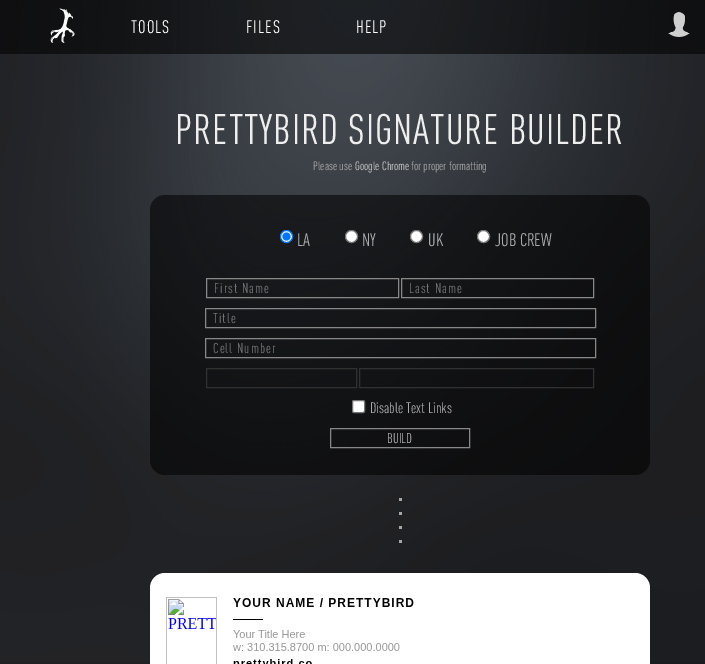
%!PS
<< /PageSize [705 664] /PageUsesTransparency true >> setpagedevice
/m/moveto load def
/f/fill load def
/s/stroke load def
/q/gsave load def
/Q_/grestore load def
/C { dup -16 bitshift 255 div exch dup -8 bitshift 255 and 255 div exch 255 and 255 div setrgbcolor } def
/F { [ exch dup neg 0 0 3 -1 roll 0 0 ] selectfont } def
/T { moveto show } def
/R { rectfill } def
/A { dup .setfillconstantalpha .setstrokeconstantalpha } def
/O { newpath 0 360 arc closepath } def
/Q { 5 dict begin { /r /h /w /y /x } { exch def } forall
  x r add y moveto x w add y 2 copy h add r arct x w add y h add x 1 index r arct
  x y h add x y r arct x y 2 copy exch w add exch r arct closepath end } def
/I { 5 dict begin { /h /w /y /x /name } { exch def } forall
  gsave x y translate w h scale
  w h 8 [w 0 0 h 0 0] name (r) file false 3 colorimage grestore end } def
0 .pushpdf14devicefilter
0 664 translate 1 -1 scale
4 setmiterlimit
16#FFFFFF C
0 0 705 664 R
(1.rgb) 0 0 705 664 I
0.57 A
16#000000 C
0 0 705 54 R
1 A
(2.rgb) 50 8 25 35 I
/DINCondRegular-Regular 18 F
16#FFFFFF C
131 33 m 1 0 (TOOLS) ashow
246 33 m 1 0 (FILES) ashow
356 33 m 1 0 (HELP) ashow
(3.rgb) 668 12 22 25 I
/DINCondRegular-Regular 42 F
16#EEEEEE C
175 144 m 1 0 (PRETTYBIRD SIGNATURE BUILDER) ashow
/DINCondRegular-Regular 12 F
16#AAAAAA C
(Please use) 313 170 T
16#CCCCCC C
(Google Chrome) 355 170 T
16#AAAAAA C
(for proper formatting) 411 170 T
0.57 A
16#000000 C
150 195 500 280 15 Q f
1 A
16#FFFFFF C
286.5 236.5 6 O q f Q_
16#0075FF C
s
286.5 236.5 4 O f
/DINCondRegular-Regular 18 F
16#AAAAAA C
(LA) 297 246 T
16#FFFFFF C
351.5 236.5 6 O q f Q_
16#767676 C
s
16#AAAAAA C
(NY) 362 246 T
16#FFFFFF C
416.5 236.5 6 O q f Q_
16#767676 C
s
16#AAAAAA C
(UK) 428 246 T
16#FFFFFF C
483.5 236.5 6 O q f Q_
16#767676 C
s
16#AAAAAA C
(JOB CREW) 495 246 T
16#888888 C
206.5 278.5 192 19 rectstroke
/DINCondRegular-Regular 14 F
16#757575 C
214 293 m 1 0 (First Name) ashow
16#888888 C
401.5 278.5 192 19 rectstroke
16#757575 C
409 293 m 1 0 (Last Name) ashow
16#888888 C
205.5 308.5 390 19 rectstroke
16#757575 C
213 323 m 1 0 (Title) ashow
16#888888 C
205.5 338.5 390 19 rectstroke
16#757575 C
213 353 m 1 0 (Cell Number) ashow
16#313131 C
206.5 368.5 150 19 rectstroke
359.5 368.5 234 19 rectstroke
16#FFFFFF C
352.5 400.5 12 12 1.5 Q q f Q_
16#767676 C
s
/DINCondRegular-Regular 15 F
16#AAAAAA C
(Disable Text Links) 370 413 T
16#888888 C
330.5 428.5 139 19 rectstroke
/DINCondRegular-Regular 14 F
16#AAAAAA C
(BUILD) 387 443 T
16#A6A6A7 C
399 498 3 3 R
16#A6A6A8 C
399 512 3 3 R
16#A6A6A7 C
399 526 3 3 R
16#A5A6A7 C
399 540 3 3 R
16#FFFFFF C
150 573 500 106 15 Q f
(4.rgb) 166 597 248 67 I
.poppdf14devicefilter showpage
